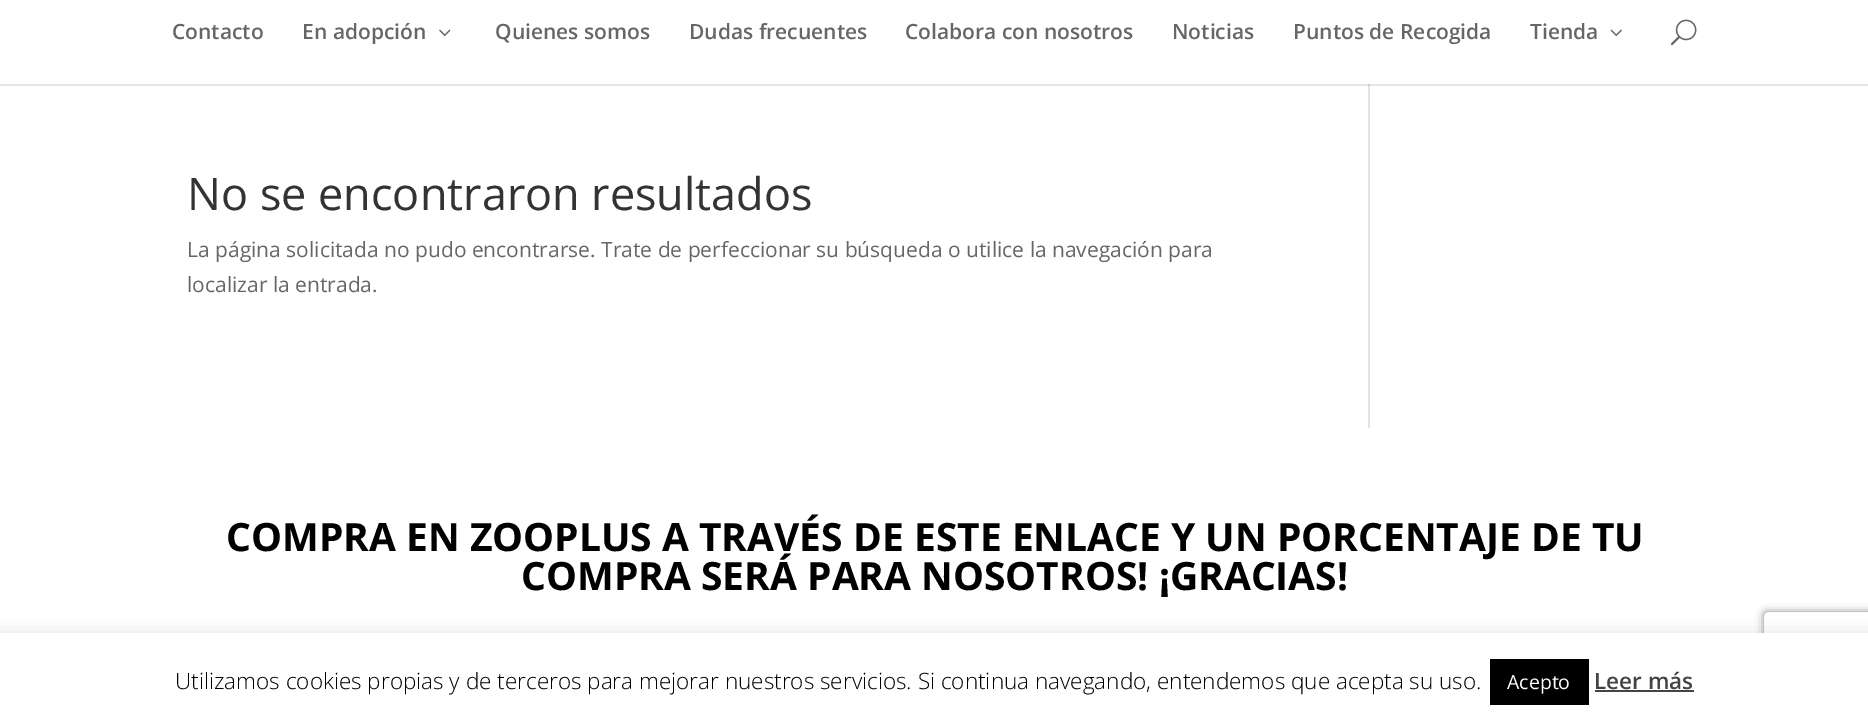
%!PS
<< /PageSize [1868 722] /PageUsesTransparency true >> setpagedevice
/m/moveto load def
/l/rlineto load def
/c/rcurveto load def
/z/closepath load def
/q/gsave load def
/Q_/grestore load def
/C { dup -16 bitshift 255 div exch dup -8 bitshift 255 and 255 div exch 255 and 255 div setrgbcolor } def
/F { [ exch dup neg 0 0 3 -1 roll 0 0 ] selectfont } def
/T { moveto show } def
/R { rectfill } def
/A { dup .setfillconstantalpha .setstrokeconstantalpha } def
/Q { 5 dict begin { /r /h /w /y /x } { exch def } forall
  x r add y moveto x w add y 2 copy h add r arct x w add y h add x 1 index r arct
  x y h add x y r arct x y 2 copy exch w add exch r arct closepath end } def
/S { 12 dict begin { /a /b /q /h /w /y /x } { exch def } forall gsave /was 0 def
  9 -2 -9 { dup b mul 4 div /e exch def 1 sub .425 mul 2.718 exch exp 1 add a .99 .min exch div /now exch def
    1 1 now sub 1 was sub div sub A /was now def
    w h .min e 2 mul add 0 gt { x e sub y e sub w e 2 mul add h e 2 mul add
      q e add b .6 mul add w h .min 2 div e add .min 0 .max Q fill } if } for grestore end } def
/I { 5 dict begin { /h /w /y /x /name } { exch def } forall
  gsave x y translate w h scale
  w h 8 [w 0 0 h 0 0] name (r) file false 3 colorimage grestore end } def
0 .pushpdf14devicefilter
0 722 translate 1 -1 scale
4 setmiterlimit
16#FFFFFF C
0 0 1868 722 R
16#E6E6E6 C
0 84 1868 2 R
/OpenSans-SemiBold 21 F
16#666666 C
(Contacto) 172 39 T
(En adopción) 302 39 T
(1.rgb) 439 29 12 7 I
(Quienes somos) 495 39 T
(Dudas frecuentes) 689 39 T
(Colabora con nosotros) 905 39 T
(Noticias) 1172 39 T
(Puntos de Recogida) 1293 39 T
(Tienda) 1530 39 T
(2.rgb) 1610 29 12 7 I
(3.rgb) 1670 19 27 27 I
/OpenSans-Regular 45 F
16#333333 C
(No se encontraron resultados) 187 210 T
/OpenSans-Regular 21 F
16#666666 C
(La página solicitada no pudo encontrarse. Trate de perfeccionar su búsqueda o utilice la navegación para) 187 257 T
(localizar la entrada.) 187 292 T
16#E2E2E2 C
1368 84 2 344 R
16#CBCBCB C
1368 84 2 2 R
/OpenSans-Bold 39 F
16#000000 C
(COMPRA EN ZOOPLUS A TRAVÉS DE ESTE ENLACE Y UN PORCENTAJE DE TU) 226 551 T
(COMPRA SERÁ PARA NOSOTROS! ¡GRACIAS!) 521 590 T
16#ACABAB C
0 632 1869 90 0 7.5 .3 S
q
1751 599 m 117 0 l 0 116 l -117 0 l z 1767 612 m 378 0 l 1.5 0 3 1.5 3 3 c 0 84 l 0 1.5 -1.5 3 -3 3 c -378 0 l -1.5 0 -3 -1.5 -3 -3 c 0 -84 l 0 -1.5 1.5 -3 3 -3 c z eoclip newpath
16#808080 C
1764 612 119 90 3 4 1 S
Q_
16#FFFFFF C
0 633 1868 89 R
/OpenSans-Light 22.5 F
16#000000 C
(Utilizamos cookies propias y de terceros para mejorar nuestros servicios. Si continua navegando, entendemos que acepta su uso.) 175 689 T
1490 659 99 46 R
/OpenSans-Regular 19.5 F
16#FFFFFF C
(Acepto) 1507 689 T
/OpenSans-SemiBold 22.5 F
16#444444 C
(Leer más) 1594 689 T
1595 690 99 2 R
.poppdf14devicefilter showpage
